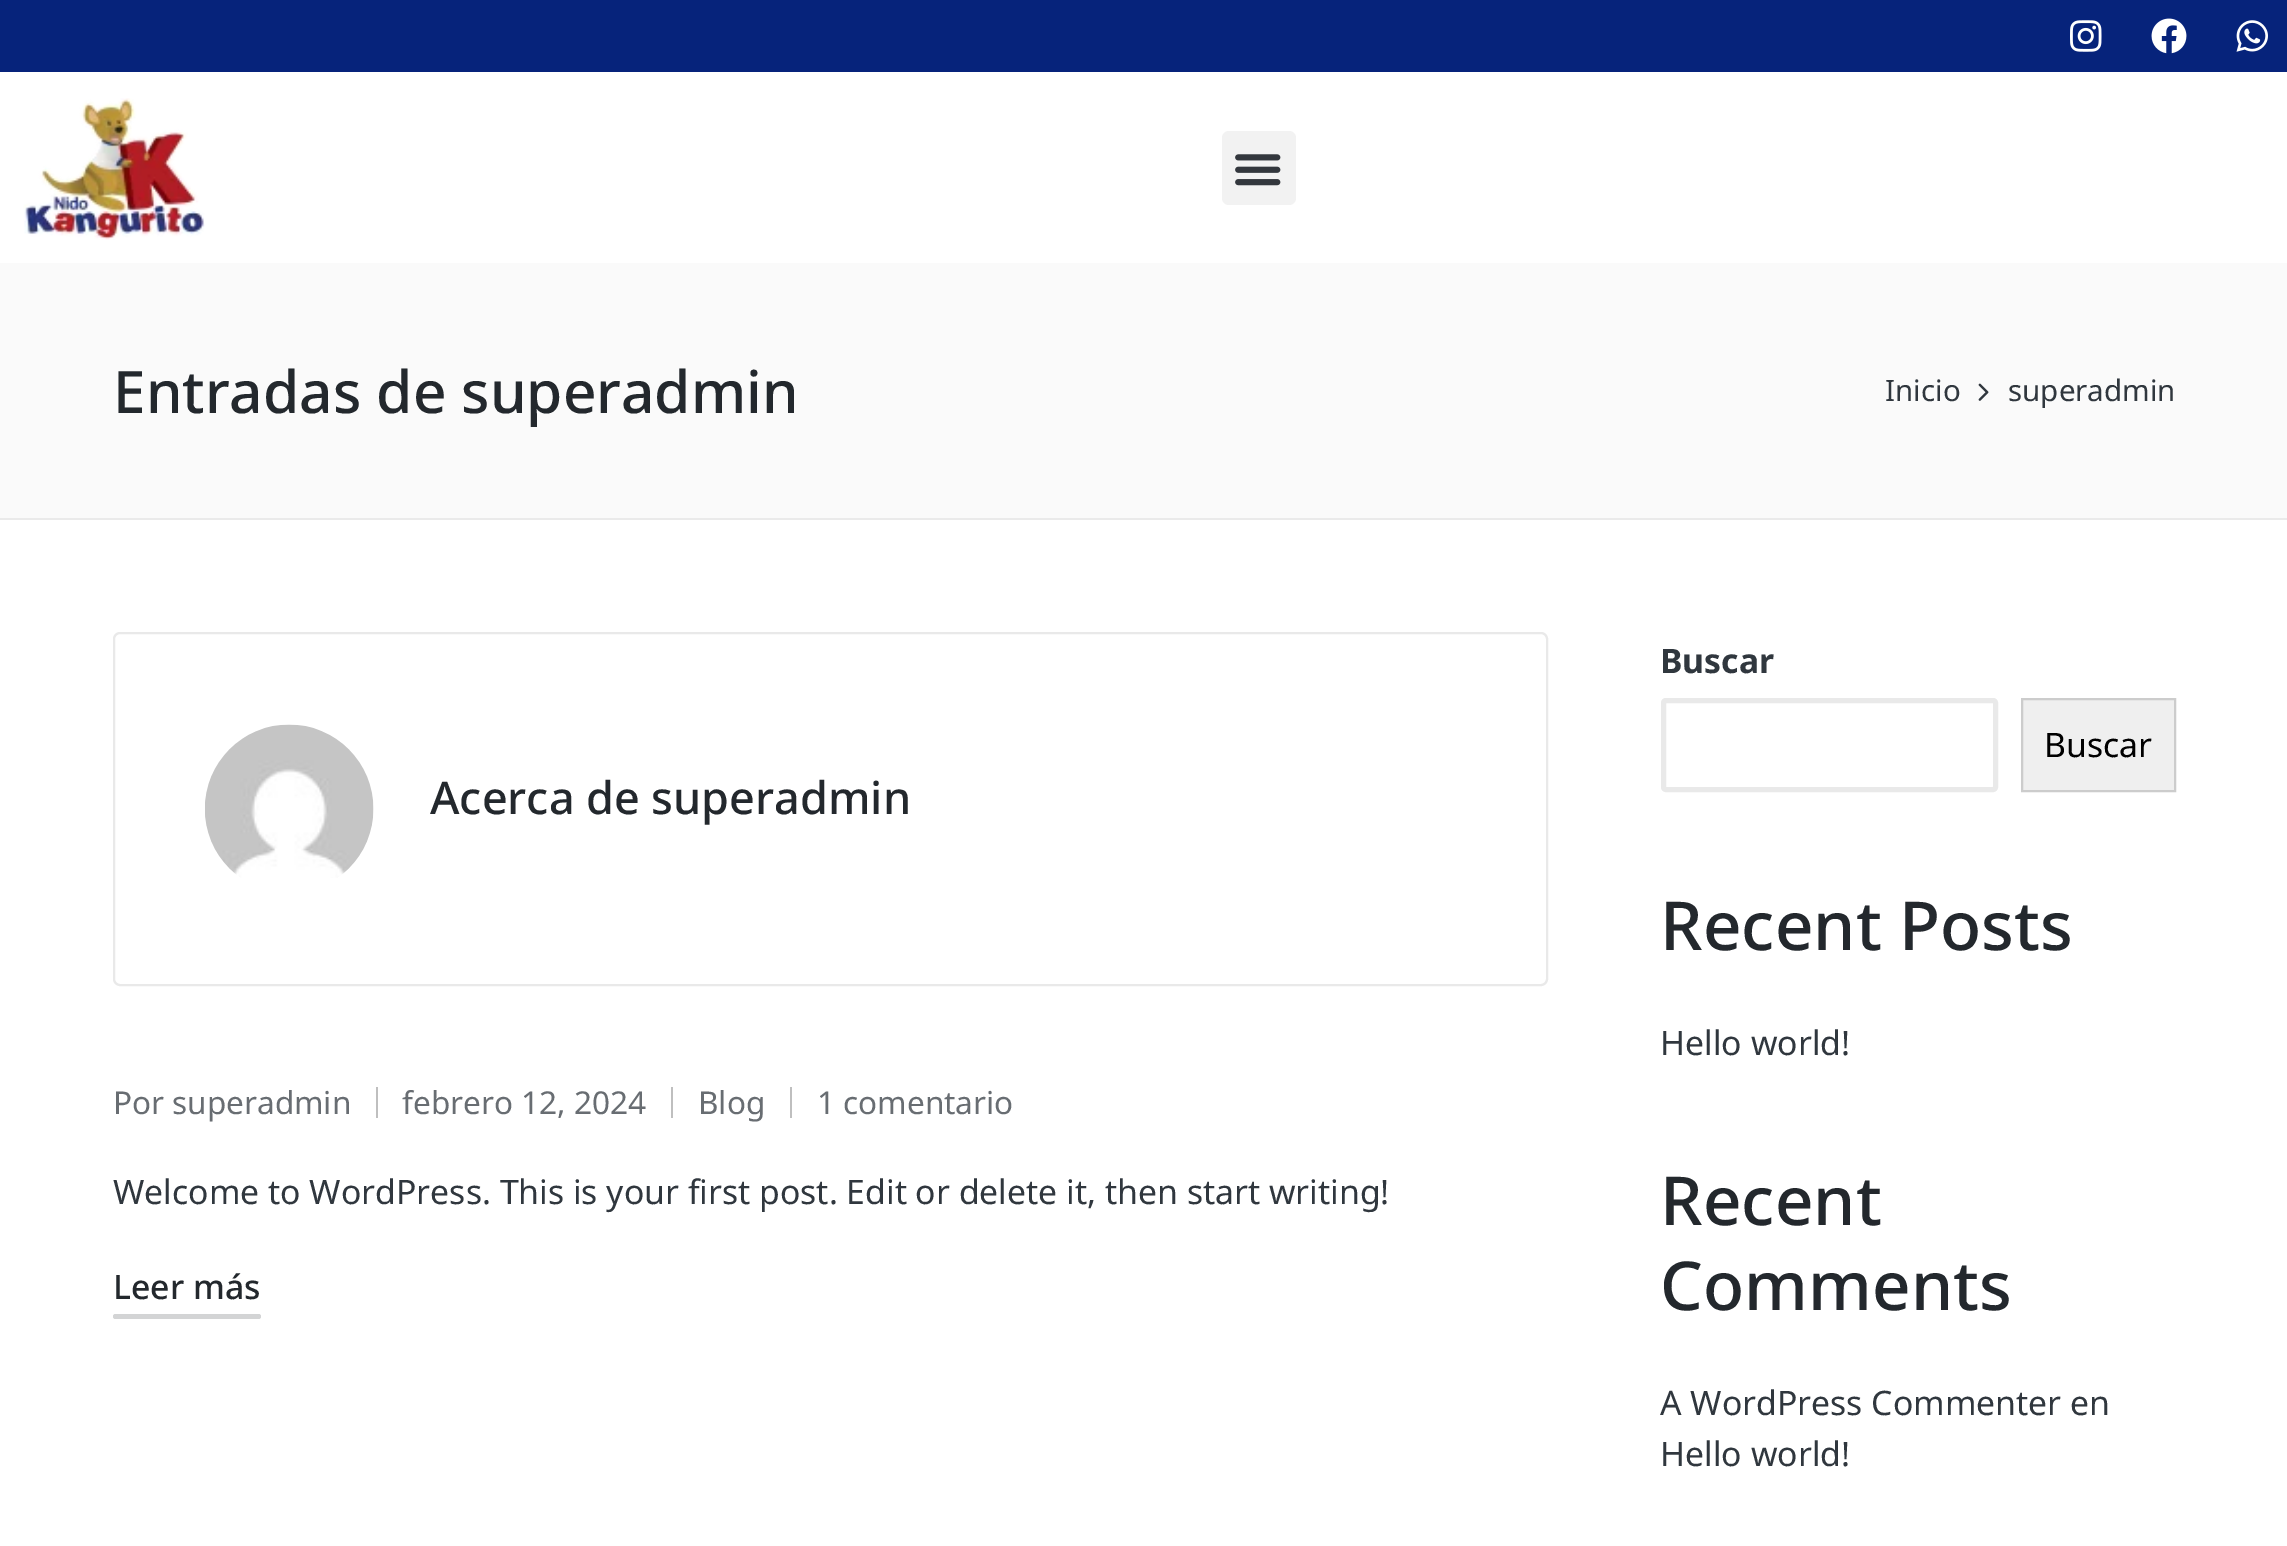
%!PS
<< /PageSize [2287 1546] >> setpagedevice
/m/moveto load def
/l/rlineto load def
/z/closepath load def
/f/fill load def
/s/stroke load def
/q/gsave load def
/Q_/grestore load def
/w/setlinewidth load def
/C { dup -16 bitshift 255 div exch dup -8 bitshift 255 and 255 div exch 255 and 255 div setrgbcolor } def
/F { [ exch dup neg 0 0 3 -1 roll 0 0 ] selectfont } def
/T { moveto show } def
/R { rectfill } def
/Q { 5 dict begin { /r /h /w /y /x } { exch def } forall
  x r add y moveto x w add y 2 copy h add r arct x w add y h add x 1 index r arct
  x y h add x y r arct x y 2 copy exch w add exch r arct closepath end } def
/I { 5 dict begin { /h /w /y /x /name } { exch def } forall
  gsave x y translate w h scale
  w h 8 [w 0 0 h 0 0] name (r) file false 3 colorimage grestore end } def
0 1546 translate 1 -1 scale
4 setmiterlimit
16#FFFFFF C
0 0 2287 1546 R
16#06237B C
0 0 2287 72 R
(1.rgb) 2070 20 32 32 I
(2.rgb) 2151 18 36 36 I
(3.rgb) 2236 20 32 32 I
(4.rgb) 23 98 182 142 I
16#F2F2F2 C
1222 131 74 74 7 Q f
(5.rgb) 1235 154 46 32 I
16#FAFAFA C
0 263 2287 255 R
16#EAEAEA C
0 518 2287 2 R
/NotoSans-Medium 58.5 F
16#23282D C
(Entradas de superadmin) 113 413 T
/NotoSans-Regular 29.5 F
16#30373E C
(Inicio) 1885 401 T
(6.rgb) 1978 383 11 18 I
(superadmin) 2008 401 T
16#E9E9E9 C
2 w
114 633 1433 352 6 Q s
(7.rgb) 205 724 169 154 I
/NotoSans-Medium 45 F
16#23282D C
(Acerca de superadmin) 430 814 T
/NotoSans-Regular 31.5 F
16#686D72 C
(Por superadmin) 113 1114 T
16#BFBFBF C
376 1087 2 31 R
16#686D72 C
(febrero 12, 2024) 402 1114 T
16#BFBFBF C
671 1087 2 31 R
16#686D72 C
(Blog) 698 1114 T
16#BFBFBF C
790 1087 2 31 R
16#686D72 C
(1 comentario) 817 1114 T
/NotoSans-Regular 33.75 F
16#30373E C
(Welcome to WordPress. This is your first post. Edit or delete it, then start writing!) 113 1204 T
/NotoSans-Medium 33.75 F
16#23282D C
(Leer más) 113 1299 T
16#D3D4D5 C
113 1314 148 5 2.5 Q f
/NotoSans-Bold 33.75 F
16#30373E C
(Buscar) 1660 673 T
16#E9E9E9 C
5 w
1663.5 700.5 332 89 2.5 Q s
16#EFEFEF C
2022 699 m 153 0 l 0 92 l -153 0 l z q f Q_
16#CCCCCC C
2 w
s
/NotoSans-Regular 33.75 F
16#000000 C
(Buscar) 2044 757 T
/NotoSans-Medium 67.5 F
16#23282D C
(Recent Posts) 1660 950 T
/NotoSans-Regular 33.75 F
16#30373E C
(Hello world!) 1660 1055 T
/NotoSans-Medium 67.5 F
16#23282D C
(Recent) 1660 1225 T
(Comments) 1660 1310 T
/NotoSans-Regular 33.75 F
16#30373E C
(A WordPress Commenter en) 1660 1415 T
(Hello world!) 1660 1466 T
showpage
